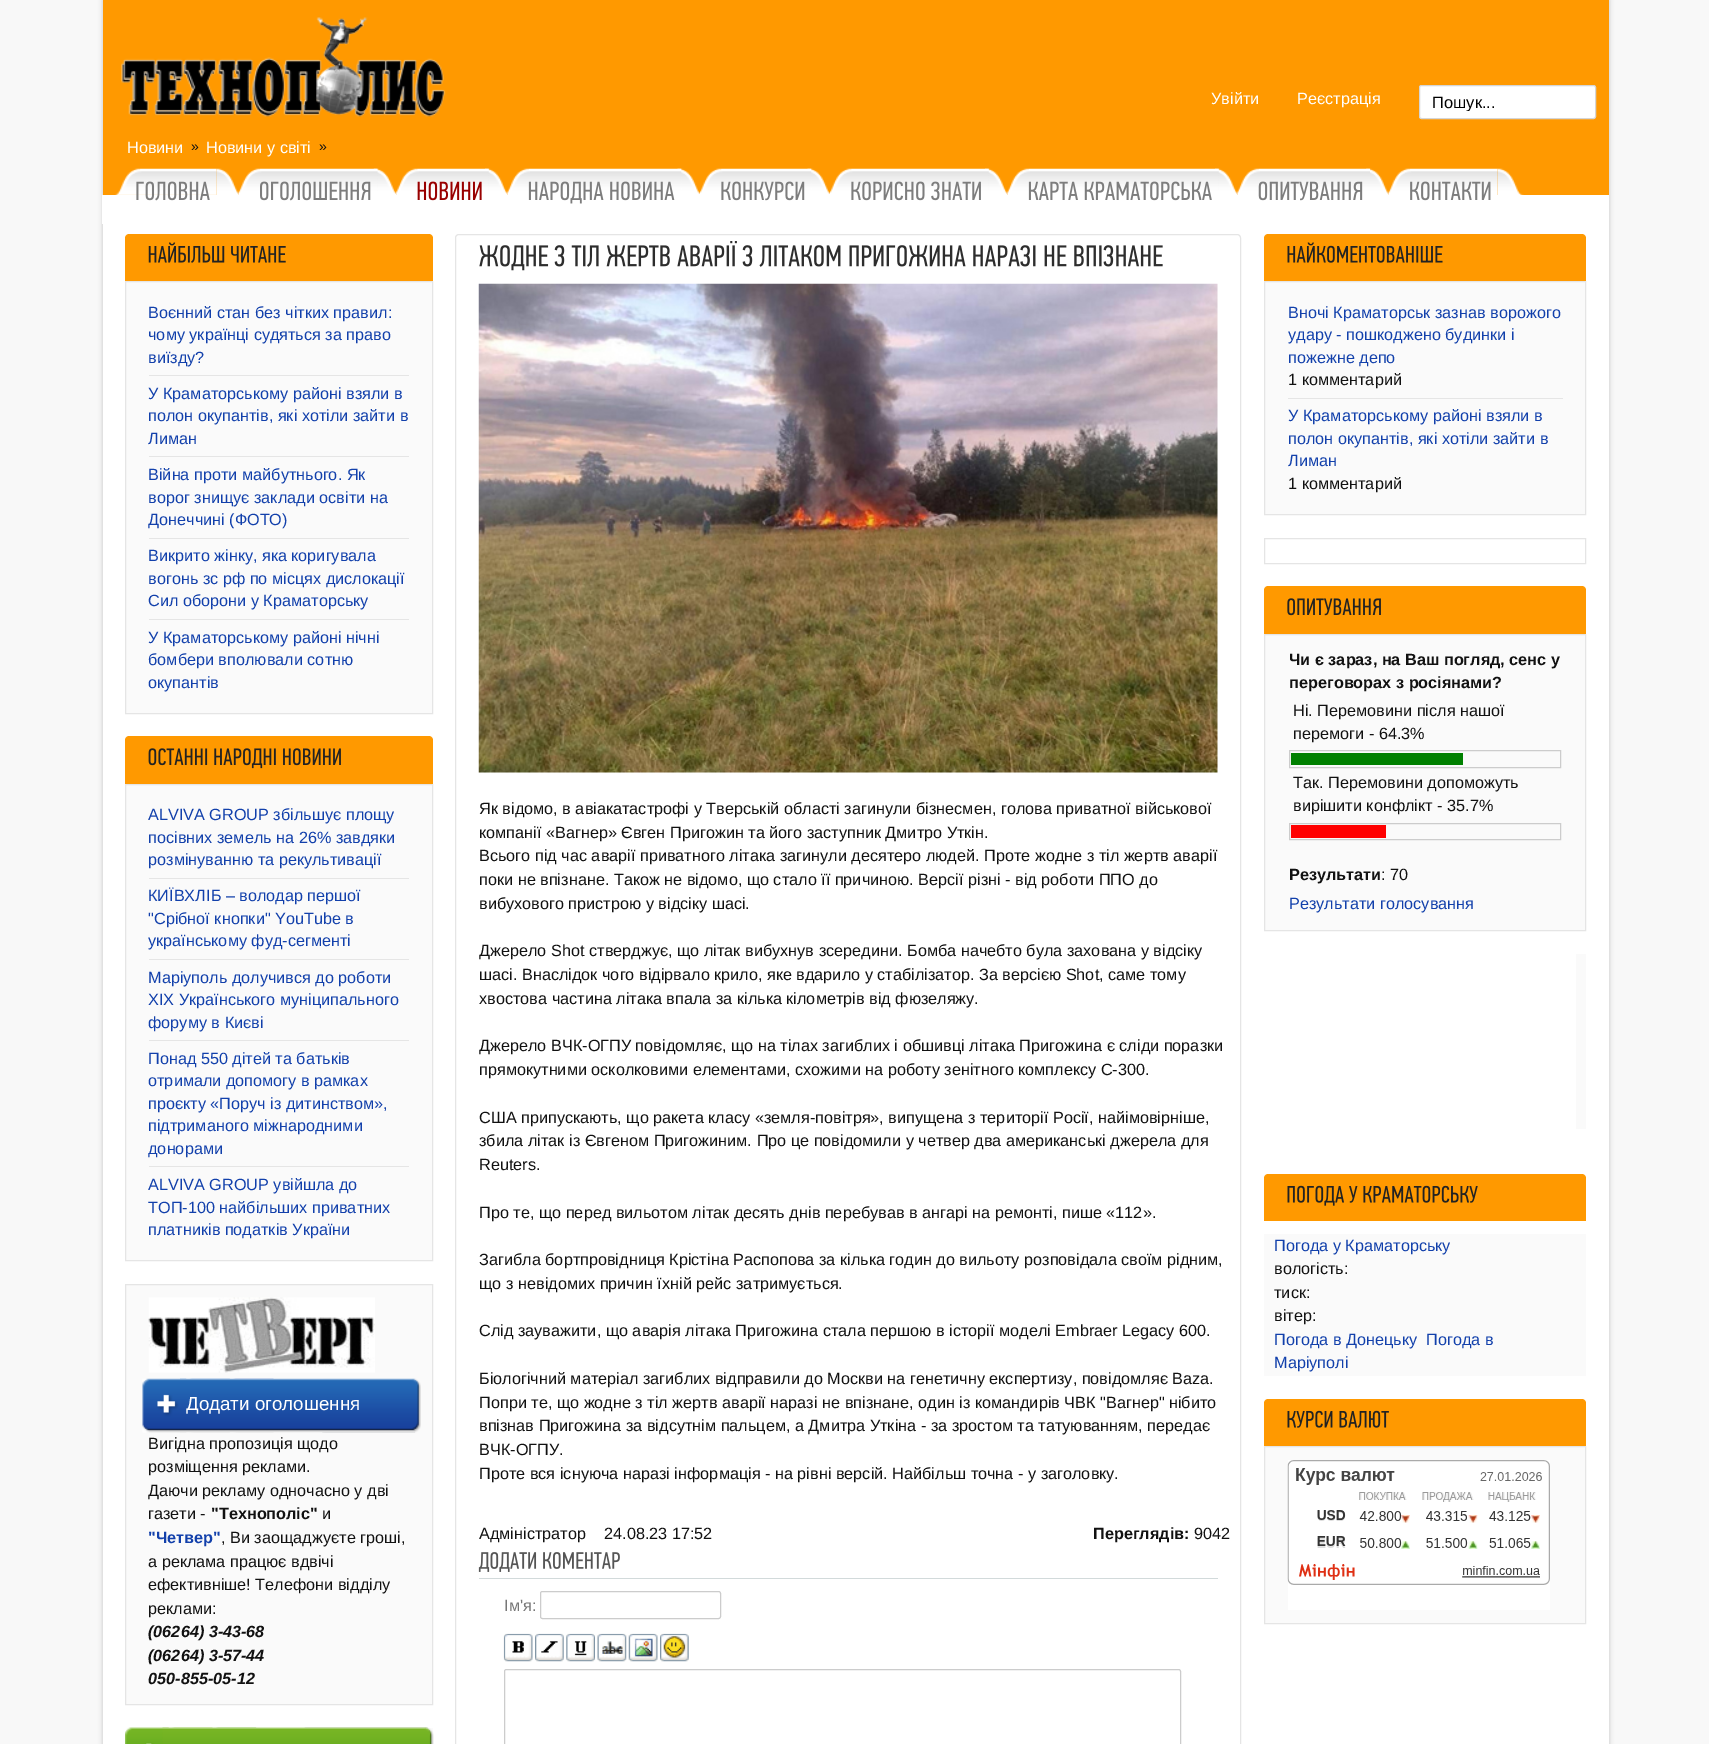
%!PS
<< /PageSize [1709 1744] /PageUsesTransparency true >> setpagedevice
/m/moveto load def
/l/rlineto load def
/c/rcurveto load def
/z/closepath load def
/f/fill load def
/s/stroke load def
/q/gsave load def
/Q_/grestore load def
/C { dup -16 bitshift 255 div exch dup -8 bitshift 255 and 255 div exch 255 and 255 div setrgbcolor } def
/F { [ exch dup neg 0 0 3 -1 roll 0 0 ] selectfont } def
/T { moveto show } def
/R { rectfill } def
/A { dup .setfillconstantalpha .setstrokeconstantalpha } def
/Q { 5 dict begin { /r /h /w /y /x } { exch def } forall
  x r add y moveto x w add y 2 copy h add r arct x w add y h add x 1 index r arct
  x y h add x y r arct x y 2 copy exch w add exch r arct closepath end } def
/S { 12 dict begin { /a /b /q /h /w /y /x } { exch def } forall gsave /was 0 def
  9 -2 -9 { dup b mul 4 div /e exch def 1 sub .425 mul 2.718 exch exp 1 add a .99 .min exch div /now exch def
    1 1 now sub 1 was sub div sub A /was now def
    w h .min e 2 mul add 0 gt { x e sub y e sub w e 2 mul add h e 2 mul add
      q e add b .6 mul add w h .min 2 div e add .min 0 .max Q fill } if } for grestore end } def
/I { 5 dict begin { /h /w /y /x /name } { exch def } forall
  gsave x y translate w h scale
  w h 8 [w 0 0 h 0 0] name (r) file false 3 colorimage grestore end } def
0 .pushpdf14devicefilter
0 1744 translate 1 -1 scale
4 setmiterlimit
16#F8F8F8 C
0 0 1709 1744 R
16#000000 C
103 0 1506 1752 0 2.5 .2 S
16#FFFFFF C
103 224 1506 1520 R
16#FF9900 C
103 0 1506 195 R
(1.rgb) 121 17 325 100 I
/LiberationSans-Regular 16.25 F
16#FFFFFF C
(Увійти) 1211 104 T
(Реєстрація) 1297 104 T
1419.5 85.5 176 33 2 Q q f Q_
16#D5D5D5 C
s
q
1433 93 150 18 rectclip
/LiberationSans-Regular 16.5 F
16#000000 C
(Пошук...) 1432 108 T
Q_
16#FFFFFF C
(Новини) 127 153 T
/LiberationSans-Regular 14 F
16#111111 C
(») 191 151 T
/LiberationSans-Regular 16.25 F
16#FFFFFF C
(Новини у світі) 206 153 T
/LiberationSans-Regular 14 F
16#111111 C
(») 319 151 T
16#FFFFFF C
102 195 1507 29 R
(2.rgb) 216 168 23 27 I
(3.rgb) 115 168 102 27 I
(4.rgb) 136 181 74 20 I
(5.rgb) 373 168 24 27 I
(6.rgb) 238 168 140 27 I
(7.rgb) 260 181 111 20 I
(8.rgb) 485 168 23 27 I
(9.rgb) 396 168 93 27 I
(10.rgb) 417 181 65 20 I
(11.rgb) 677 168 23 27 I
(12.rgb) 507 168 175 27 I
(13.rgb) 528 181 147 23 I
(14.rgb) 807 168 23 27 I
(15.rgb) 700 168 112 27 I
(16.rgb) 721 181 84 20 I
(17.rgb) 985 168 23 27 I
(18.rgb) 830 168 159 27 I
(19.rgb) 851 181 130 20 I
(20.rgb) 1215 168 23 27 I
(21.rgb) 1007 168 212 27 I
(22.rgb) 1028 181 184 20 I
(2.rgb) 1366 168 23 27 I
(23.rgb) 1237 168 133 27 I
(24.rgb) 1258 181 105 20 I
(25.rgb) 1497 168 27 27 I
(26.rgb) 1388 168 110 27 I
(27.rgb) 1410 181 81 20 I
16#FF9900 C
129 234 m 300 0 l 2 0 4 2 4 4 c 0 43 l -308 0 l 0 -43 l 0 -2 2 -4 4 -4 c z f
(28.rgb) 148 242 138 21 I
16#FAFAFA C
125.5 281.5 m 307 0 l 0 432 l -307 0 l z q f Q_
16#E5E5E5 C
s
/LiberationSans-Regular 16.25 F
16#1240AB C
(Воєнний стан без чітких правил:) 148 318 T
(чому українці судяться за право) 148 340 T
(виїзду?) 148 363 T
16#E5E5E5 C
149 375 260 1 R
16#1240AB C
(У Краматорському районі взяли в) 148 399 T
(полон окупантів, які хотіли зайти в) 148 421 T
(Лиман) 148 444 T
16#E5E5E5 C
149 456 260 1 R
16#1240AB C
(Війна проти майбутнього. Як) 148 480 T
(ворог знищує заклади освіти на) 148 503 T
(Донеччині \(ФОТО\)) 148 525 T
16#E5E5E5 C
149 538 260 1 R
16#1240AB C
(Викрито жінку, яка коригувала) 148 561 T
(вогонь зс рф по місцях дислокації) 148 584 T
(Сил оборони у Краматорську) 148 606 T
16#E5E5E5 C
149 619 260 1 R
16#1240AB C
(У Краматорському районі нічні) 148 643 T
(бомбери вполювали сотню) 148 665 T
(окупантів) 148 688 T
16#FF9900 C
129 736 m 300 0 l 2 0 4 2 4 4 c 0 44 l -308 0 l 0 -44 l 0 -2 2 -4 4 -4 c z f
(29.rgb) 148 748 193 21 I
16#FAFAFA C
125.5 784.5 m 307 0 l 0 476 l -307 0 l z q f Q_
16#E5E5E5 C
s
16#1240AB C
(ALVIVA GROUP збільшує площу) 148 820 T
(посівних земель на 26% завдяки) 148 843 T
(розмінуванню та рекультивації) 148 865 T
16#E5E5E5 C
149 878 260 1 R
16#1240AB C
(КИЇВХЛІБ – володар першої) 148 901 T
("Срібної кнопки" YouTube в) 148 924 T
(українському фуд-сегменті) 148 946 T
16#E5E5E5 C
149 959 260 1 R
16#1240AB C
(Маріуполь долучився до роботи) 148 983 T
(XIX Українського муніципального) 148 1005 T
(форуму в Києві) 148 1028 T
16#E5E5E5 C
149 1040 260 1 R
16#1240AB C
(Понад 550 дітей та батьків) 148 1064 T
(отримали допомогу в рамках) 148 1086 T
(проєкту «Поруч із дитинством»,) 148 1109 T
(підтриманого міжнародними) 148 1131 T
(донорами) 148 1154 T
16#E5E5E5 C
149 1166 260 1 R
16#1240AB C
(ALVIVA GROUP увійшла до) 148 1190 T
(ТОП-100 найбільших приватних) 148 1213 T
(платників податків України) 148 1235 T
16#FAFAFA C
125.5 1284.5 m 307 0 l 0 420 l -307 0 l z q f Q_
16#E5E5E5 C
s
(30.rgb) 148 1297 227 76 I
(31.rgb) 142 1378 273 55 I
(32.rgb) 180 1378 241 55 I
/LiberationSans-Regular 18.75 F
16#FFFFFF C
(Додати оголошення) 186 1410 T
/LiberationSans-Regular 16.25 F
16#111111 C
(Вигідна пропозиція щодо) 148 1449 T
(розміщення реклами.) 148 1472 T
(Даючи рекламу одночасно у дві) 148 1496 T
(газети -) 148 1519 T
/LiberationSans-Bold 16.25 F
("Технополіс") 211 1519 T
/LiberationSans-Regular 16.25 F
(и) 322 1519 T
/LiberationSans-Bold 16.25 F
16#1240AB C
("Четвер") 148 1543 T
/LiberationSans-Regular 16.25 F
16#111111 C
(, Ви заощаджуєте гроші,) 221 1543 T
(а реклама працює вдвічі) 148 1567 T
(ефективніше! Телефони відділу) 148 1590 T
(реклами:) 148 1614 T
/LiberationSans-BoldItalic 16.25 F
(\(06264\) 3-43-68) 148 1637 T
(\(06264\) 3-57-44) 148 1661 T
(050-855-05-12) 148 1684 T
16#FAFAFA C
427 1728 6 16 R
(33.rgb) 125 1727 303 17 I
(34.rgb) 162 1727 272 17 I
16#E5E5E5 C
459 234.5 m 778 0 l 2 0 3.5 1.5 3.5 3.5 c 0 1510.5 l -785 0 l 0 -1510.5 l 0 -2 1.5 -3.5 3.5 -3.5 c z s
(35.rgb) 479 241 684 30 I
(36.rgb) 478 283 740 490 I
/LiberationSans-Regular 16.25 F
16#111111 C
(Як відомо, в авіакатастрофі у Тверській області загинули бізнесмен, голова приватної військової) 479 814 T
(компанії «Вагнер» Євген Пригожин та його заступник Дмитро Уткін.) 479 838 T
(Всього під час аварії приватного літака загинули десятеро людей. Проте жодне з тіл жертв аварії) 479 861 T
(поки не впізнане. Також не відомо, що стало її причиною. Версії різні - від роботи ППО до) 479 885 T
(вибухового пристрою у відсіку шасі.) 479 909 T
(Джерело Shot стверджує, що літак вибухнув зсередини. Бомба начебто була захована у відсіку) 479 956 T
(шасі. Внаслідок чого відірвало крило, яке вдарило у стабілізатор. За версією Shot, саме тому) 479 980 T
(хвостова частина літака впала за кілька кілометрів від фюзеляжу.) 479 1004 T
(Джерело ВЧК-ОГПУ повідомляє, що на тілах загиблих і обшивці літака Пригожина є сліди поразки) 479 1051 T
(прямокутними осколковими елементами, схожими на роботу зенітного комплексу С-300.) 479 1075 T
(США припускають, що ракета класу «земля-повітря», випущена з території Росії, найімовірніше,) 479 1123 T
(збила літак із Євгеном Пригожиним. Про це повідомили у четвер два американські джерела для) 479 1146 T
(Reuters.) 479 1170 T
(Про те, що перед вильотом літак десять днів перебував в ангарі на ремонті, пише «112».) 479 1218 T
(Загибла бортпровідниця Крістіна Распопова за кілька годин до вильоту розповідала своїм рідним,) 479 1265 T
(що з невідомих причин їхній рейс затримується.) 479 1289 T
(Слід зауважити, що аварія літака Пригожина стала першою в історії моделі Embraer Legacy 600.) 479 1336 T
(Біологічний матеріал загиблих відправили до Москви на генетичну експертизу, повідомляє Baza.) 479 1384 T
(Попри те, що жодне з тіл жертв аварії наразі не впізнане, один із командирів ЧВК "Вагнер" нібито) 479 1408 T
(впізнав Пригожина за відсутнім пальцем, а Дмитра Уткіна - за зростом та татуюванням, передає) 479 1431 T
(ВЧК-ОГПУ.) 479 1455 T
(Проте вся існуюча наразі інформація - на рівні версій. Найбільш точна - у заголовку.) 479 1479 T
(Адміністратор) 479 1539 T
(24.08.23 17:52) 604 1539 T
/LiberationSans-Bold 16.25 F
(Переглядів:) 1093 1539 T
/LiberationSans-Regular 16.25 F
(9042) 1194 1539 T
16#D2DADB C
479 1578 739 1 R
(37.rgb) 478 1552 142 20 I
16#777777 C
(Ім'я:) 504 1611 T
16#CCCCCC C
540.5 1591.5 180 27 2 Q s
(38.rgb) 503 1633 30 29 I
(39.rgb) 535 1633 29 29 I
(40.rgb) 566 1633 29 29 I
(41.rgb) 597 1633 30 29 I
(42.rgb) 628 1633 30 29 I
(43.rgb) 660 1633 29 29 I
504.5 1669.5 676 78 2 Q s
16#FF9900 C
1268 234 m 314 0 l 2 0 4 2 4 4 c 0 43 l -322 0 l 0 -43 l 0 -2 2 -4 4 -4 c z f
(44.rgb) 1287 242 156 21 I
16#FAFAFA C
1264.5 281.5 m 321 0 l 0 233 l -321 0 l z q f Q_
16#E5E5E5 C
s
16#1240AB C
(Вночі Краматорськ зазнав ворожого) 1288 318 T
(удару - пошкоджено будинки і) 1288 340 T
(пожежне депо) 1288 363 T
16#111111 C
(1 комментарий) 1288 385 T
16#E5E5E5 C
1288 398 275 1 R
16#1240AB C
(У Краматорському районі взяли в) 1288 421 T
(полон окупантів, які хотіли зайти в) 1288 444 T
(Лиман) 1288 466 T
16#111111 C
(1 комментарий) 1288 489 T
16#E5E5E5 C
1264.5 538.5 321 25 rectstroke
16#FF9900 C
1268 586 m 314 0 l 2 0 4 2 4 4 c 0 44 l -322 0 l 0 -44 l 0 -2 2 -4 4 -4 c z f
(45.rgb) 1287 598 94 18 I
16#FAFAFA C
1264.5 634.5 m 321 0 l 0 296 l -321 0 l z q f Q_
16#E5E5E5 C
s
/LiberationSans-Bold 16.25 F
16#111111 C
(Чи є зараз, на Ваш погляд, сенс у) 1289 665 T
(переговорах з росіянами?) 1289 688 T
/LiberationSans-Regular 16.25 F
(Ні. Перемовини після нашої) 1293 716 T
(перемоги - 64.3%) 1293 739 T
16#CCCCCC C
1289.5 750.5 271 17 rectstroke
16#008000 C
1291 753 172 12 R
16#111111 C
(Так. Перемовини допоможуть) 1293 788 T
(вирішити конфлікт - 35.7%) 1293 811 T
16#CCCCCC C
1289.5 823.5 271 16 rectstroke
16#FF0000 C
1291 825 95 13 R
/LiberationSans-Bold 16.25 F
16#111111 C
(Результати) 1289 880 T
/LiberationSans-Regular 16.25 F
(: 70) 1381 880 T
16#1240AB C
(Результати голосування) 1289 909 T
16#FAFAFA C
1576 954 10 175 R
16#FF9900 C
1268 1174 m 314 0 l 2 0 4 2 4 4 c 0 43 l -322 0 l 0 -43 l 0 -2 2 -4 4 -4 c z f
(46.rgb) 1287 1185 191 21 I
16#FAFAFA C
1264 1234 322 142 R
16#1240AB C
(Погода у Краматорську) 1274 1251 T
16#111111 C
(вологість:) 1274 1274 T
(тиск:) 1274 1298 T
(вітер:) 1274 1321 T
16#1240AB C
(Погода в Донецьку) 1274 1345 T
(Погода в) 1426 1345 T
(Маріуполі) 1274 1368 T
16#FF9900 C
1268 1399 m 314 0 l 2 0 4 2 4 4 c 0 43 l -322 0 l 0 -43 l 0 -2 2 -4 4 -4 c z f
(47.rgb) 1287 1410 102 18 I
16#FAFAFA C
1264.5 1446.5 m 321 0 l 0 177 l -321 0 l z q f Q_
16#E5E5E5 C
s
16#FFFFFF C
1288 1460 262 150 R
(48.rgb) 1287 1460 263 125 I
.poppdf14devicefilter showpage
